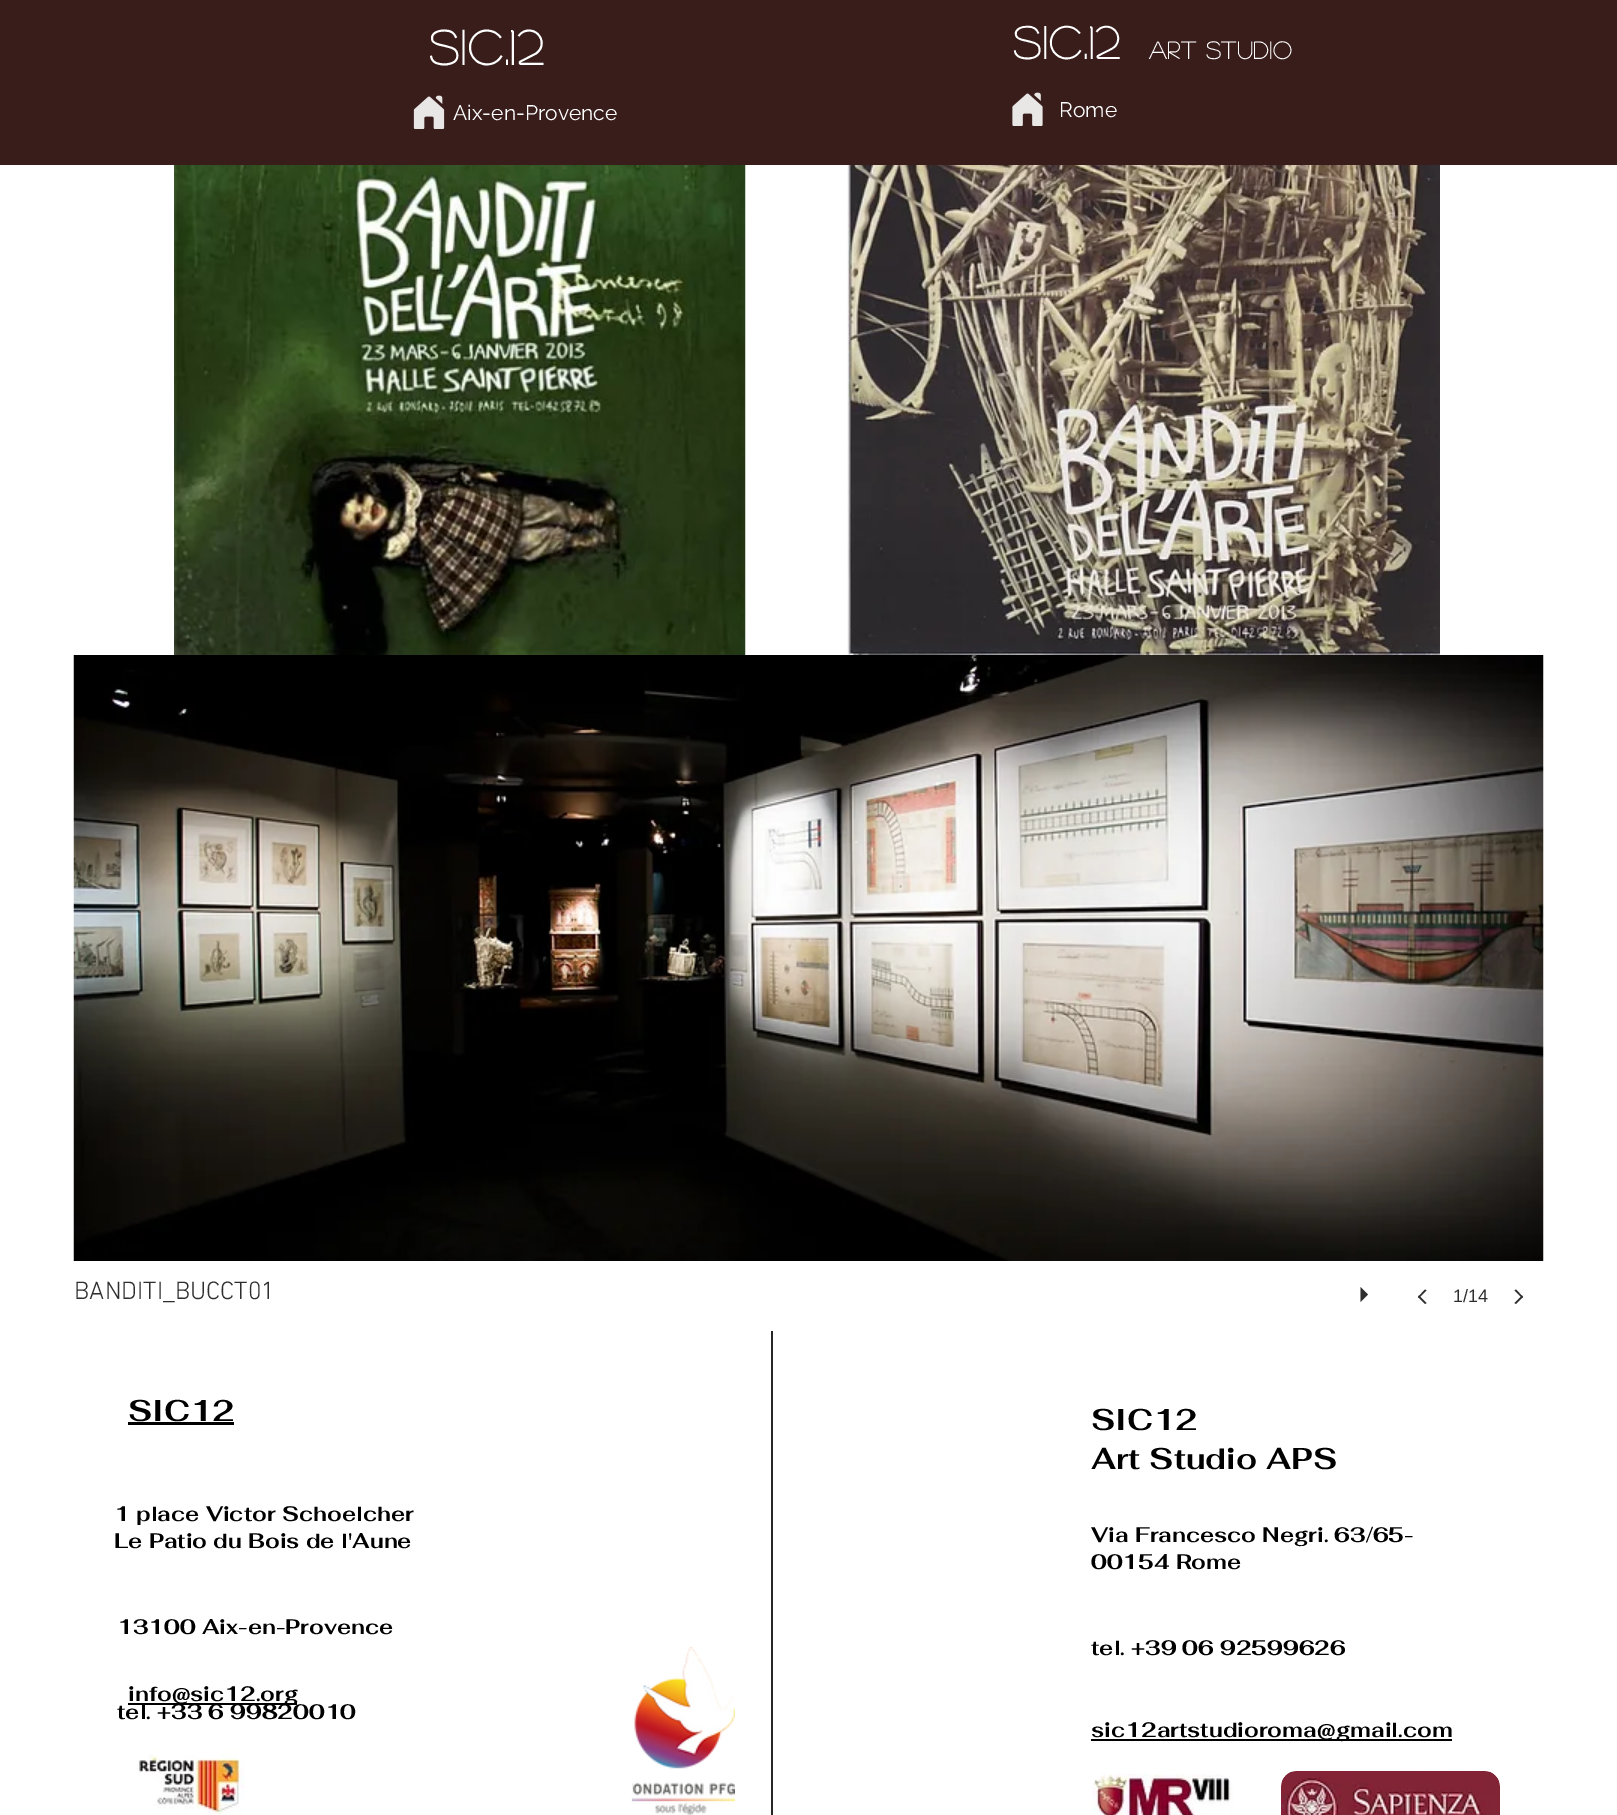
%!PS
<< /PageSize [1617 1815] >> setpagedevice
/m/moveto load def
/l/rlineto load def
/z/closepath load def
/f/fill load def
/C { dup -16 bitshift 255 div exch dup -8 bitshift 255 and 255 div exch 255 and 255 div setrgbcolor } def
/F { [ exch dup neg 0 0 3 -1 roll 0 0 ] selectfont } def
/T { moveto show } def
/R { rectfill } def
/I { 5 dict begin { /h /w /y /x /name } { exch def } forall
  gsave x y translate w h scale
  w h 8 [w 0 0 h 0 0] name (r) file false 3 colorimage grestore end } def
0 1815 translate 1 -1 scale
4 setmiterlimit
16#FFFFFF C
0 0 1617 1815 R
16#381D1B C
0 0 1617 165 R
/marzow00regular-Bold 48 F
16#FFFFFF C
429 65 m 2 0 (SIC.12) ashow
/marzow00regular-Bold 45 F
1013 59 m 1.75 0 (SIC.12) ashow
/marzow00regular-Bold 24 F
1149 59 m 1 0 (art studio) ashow
(1.rgb) 413 95 32 34 I
/Raleway-Regular 21 F
(Aix-en-Provence) 453 120 T
(2.rgb) 1012 92 31 34 I
(Rome) 1059 117 T
(3.rgb) 174 165 572 490 I
(4.rgb) 847 165 593 490 I
(5.rgb) 73 655 1471 606 I
/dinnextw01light-Light 25.5 F
16#2F2E2E C
(BANDITI_BUCCT01) 74 1299 T
1360.5 1302 m 0 -15 l 7.5 7.5 l z f
1418 1297 m 7 -7.5 l 1.5 1 l -7.5 7.5 l z f
1418 1297 m 1 -1.5 l 7.5 7.5 l -1.5 1 l z f
/LiberationSans-Regular 18 F
(1/14) 1453 1302 T
1514.5 1290.5 m 1.5 -1 l 7 7.5 l -1 1 l z f
1514.5 1303 m 7.5 -7.5 l 1 1.5 l -7 7 l z f
/Fahkwang-Bold 30 F
16#000000 C
(SIC12) 128 1421 T
128 1422 106 3 R
16#282626 C
771 1331 2 484 R
16#000000 C
(SIC12) 1091 1430 T
(Art Studio APS) 1091 1469 T
/Fahkwang-Bold 21 F
(1 place Victor Schoelcher) 114 1521 T
(Le Patio du Bois de l'Aune) 114 1548 T
(Via Francesco Negri. 63/65-) 1091 1542 T
(00154 Rome) 1091 1569 T
(13100 Aix-en-Provence) 117 1634 T
(tel. +39 06 92599626) 1091 1655 T
128 1703 169 2 R
(tel. +33 6 99820010) 117 1719 T
1091 1739 361 2 R
(sic12artstudioroma@gmail.com) 1091 1737 T
(6.rgb) 1092 1774 141 41 I
(7.rgb) 1281 1771 219 44 I
(info@sic12.org) 128 1701 T
(8.rgb) 631 1646 104 169 I
(9.rgb) 136 1749 109 66 I
showpage
